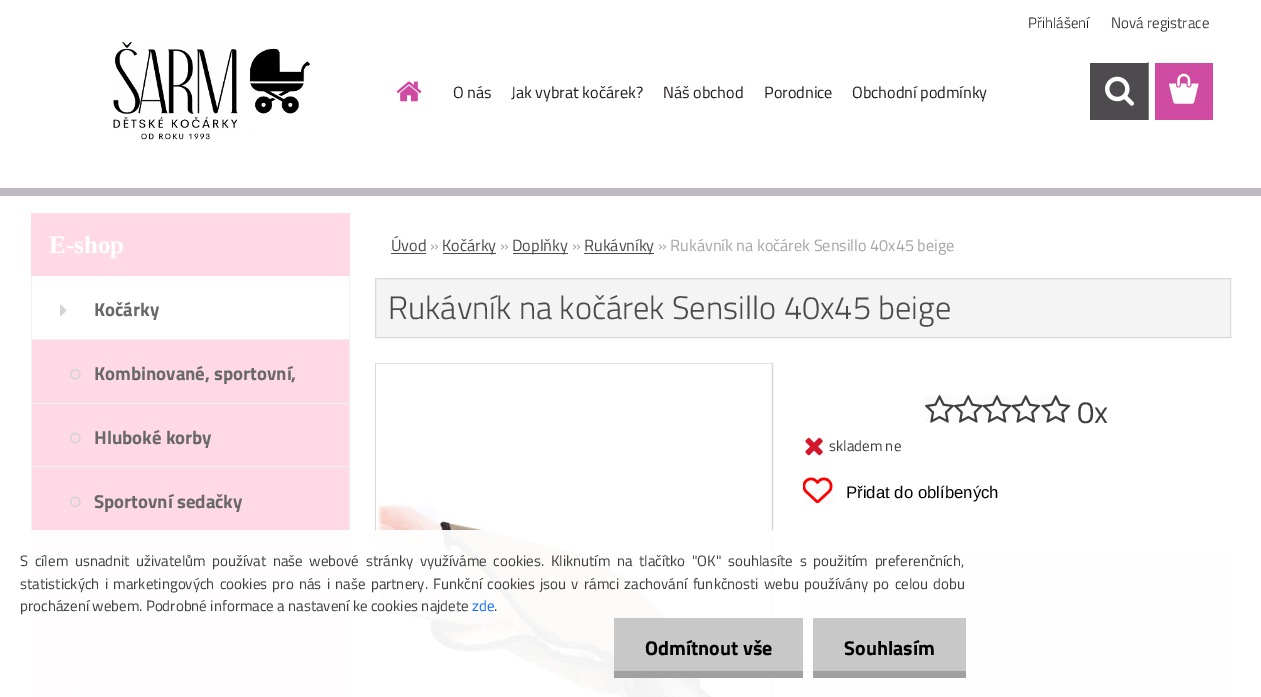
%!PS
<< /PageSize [1261 697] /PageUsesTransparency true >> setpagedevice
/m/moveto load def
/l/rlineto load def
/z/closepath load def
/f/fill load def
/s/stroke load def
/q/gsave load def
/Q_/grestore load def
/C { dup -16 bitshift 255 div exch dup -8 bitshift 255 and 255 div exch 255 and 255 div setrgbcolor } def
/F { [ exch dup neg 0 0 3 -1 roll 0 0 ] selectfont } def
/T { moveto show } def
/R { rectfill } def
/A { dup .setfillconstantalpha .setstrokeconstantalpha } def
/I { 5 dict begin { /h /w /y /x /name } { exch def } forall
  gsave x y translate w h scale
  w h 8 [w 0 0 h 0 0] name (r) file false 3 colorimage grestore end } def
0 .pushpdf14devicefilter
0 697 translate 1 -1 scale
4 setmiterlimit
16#FFFFFF C
0 0 1261 697 R
16#4D4D4D C
584 253 70 1 R
513 253 55 1 R
443 253 53 1 R
391 253 35 1 R
/TitilliumWeb-Light 15 F
16#231C24 C
(Přihlášení) 1028 28 T
(Nová registrace) 1111 28 T
16#CF4BA2 C
1155 63 58 57 R
(1.rgb) 1169 73 30 31 I
16#FFDAE6 C
31 213 319 63 R
/LiberationSerif-Bold 25 F
16#FFFFFF C
(E-shop) 49 253 T
16#F0F0F0 C
349 276 1 421 R
31 339 319 1 R
31 276 1 64 R
(2.rgb) 60 304 7 12 I
/TitilliumWeb-Bold 18.75 F
16#686868 C
(Kočárky) 94 316 T
16#FFDAE6 C
32 340 317 63 R
16#F0F0F0 C
31 403 319 1 R
31 340 1 64 R
(3.rgb) 70 369 11 11 I
16#686868 C
(Kombinované, sportovní,) 94 380 T
16#FFDAE6 C
32 404 317 126 R
16#F0F0F0 C
31 466 319 1 R
31 404 1 64 R
(4.rgb) 70 432 11 12 I
16#686868 C
(Hluboké korby) 94 444 T
16#F0F0F0 C
31 530 319 1 R
31 468 1 63 R
(5.rgb) 70 496 11 12 I
16#686868 C
(Sportovní sedačky) 94 508 T
16#FFDAE6 C
32 531 317 63 R
16#F0F0F0 C
31 594 319 1 R
31 531 1 64 R
(6.rgb) 70 560 11 11 I
16#FFDAE6 C
32 595 317 63 R
16#F0F0F0 C
31 658 319 1 R
31 595 1 102 R
(3.rgb) 70 624 11 11 I
16#FFDAE6 C
32 659 317 38 R
(7.rgb) 70 687 11 10 I
/TitilliumWeb-Regular 16.25 F
16#4B4B4B C
(Úvod) 391 251 T
16#A5A5A5 C
(») 430 251 T
16#4B4B4B C
(Kočárky) 442 251 T
16#A5A5A5 C
(») 500 251 T
16#4B4B4B C
(Doplňky) 512 251 T
16#A5A5A5 C
(») 572 251 T
16#4B4B4B C
(Rukávníky) 584 251 T
16#A5A5A5 C
(» Rukávník na kočárek Sensillo 40x45 beige) 658 251 T
16#F4F4F4 C
375.5 278.5 m 855 0 l 0 59 l -855 0 l z q f Q_
16#D9D9D9 C
s
/TitilliumWeb-Light 32.5 F
16#4B4B4B C
(Rukávník na kočárek Sensillo 40x45 beige) 388 319 T
16#F4F4F4 C
375.5 363.5 m 397 0 l 0 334 l -397 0 l z q f Q_
16#D9D9D9 C
s
(8.rgb) 376 363 395 334 I
(9.rgb) 925 395 29 28 I
(10.rgb) 953 395 30 28 I
(11.rgb) 982 395 30 28 I
(12.rgb) 1011 395 30 28 I
(13.rgb) 1041 395 30 28 I
/TitilliumWeb-Regular 31 F
16#3F3F3F C
(0x) 1077 423 T
(14.rgb) 805 437 18 19 I
/TitilliumWeb-Regular 15 F
(skladem ne) 829 451 T
(15.rgb) 803 477 30 27 I
/LiberationSans-Regular 16.75 F
16#000000 C
(Přidat do oblíbených) 846 498 T
16#D9D9D9 C
803 550 428 1 R
1230 550 1 147 R
803 550 1 147 R
16#F4F4F4 C
804 551 426 53 R
804 605 426 53 R
16#D9D9D9 C
803 604 428 1 R
16#F4F4F4 C
804 659 426 38 R
16#D9D9D9 C
803 658 428 1 R
16#BFBAC1 C
0 188 1261 8 R
(16.rgb) 113 41 198 99 I
(17.rgb) 396 81 26 21 I
/TitilliumWeb-Regular 16.25 F
16#231C24 C
(O nás) 453 98 T
(Jak vybrat kočárek?) 511 98 T
(Náš obchod) 663 98 T
(Porodnice) 764 98 T
(Obchodní podmínky) 852 98 T
16#808080 C
1147.5 62.5 m 1.5 0 l 0 1.5 l z 1149 120 m -1.5 0 l 1.5 -1 l z f
0.5 A
16#000000 C
1148 120 m 0 -58 l 1 2 l 0 55 l z f
1 A
16#4E4B4F C
1090 63 58 57 R
(18.rgb) 1105 76 29 30 I
0.95 A
16#FFFFFF C
31 530 1200 167 R
/TitilliumWeb-Regular 15 F
1 A
16#3F3F3F C
20 566 m 3.25 0 32 (S cílem usnadnit uživatelům používat naše webové stránky využíváme cookies. Kliknutím na tlačítko "OK" souhlasíte s použitím preferenčních,) widthshow
20 589 m 2 0 32 (statistických i marketingových cookies pro nás i naše partnery. Funkční cookies jsou v rámci zachování funkčnosti webu používány po celou dobu) widthshow
(procházení webem. Podrobné informace a nastavení ke cookies najdete) 20 611 T
16#0D6EFD C
(zde) 472 611 T
16#3F3F3F C
(.) 494 611 T
16#C8C8C8 C
614 618 189 53 R
16#A0A0A0 C
614 671 189 7 R
/TitilliumWeb-Bold 20 F
16#000000 C
(Odmítnout vše) 645 655 T
16#C8C8C8 C
813 618 153 53 R
16#A0A0A0 C
813 671 153 7 R
16#000000 C
(Souhlasím) 844 655 T
.poppdf14devicefilter showpage
